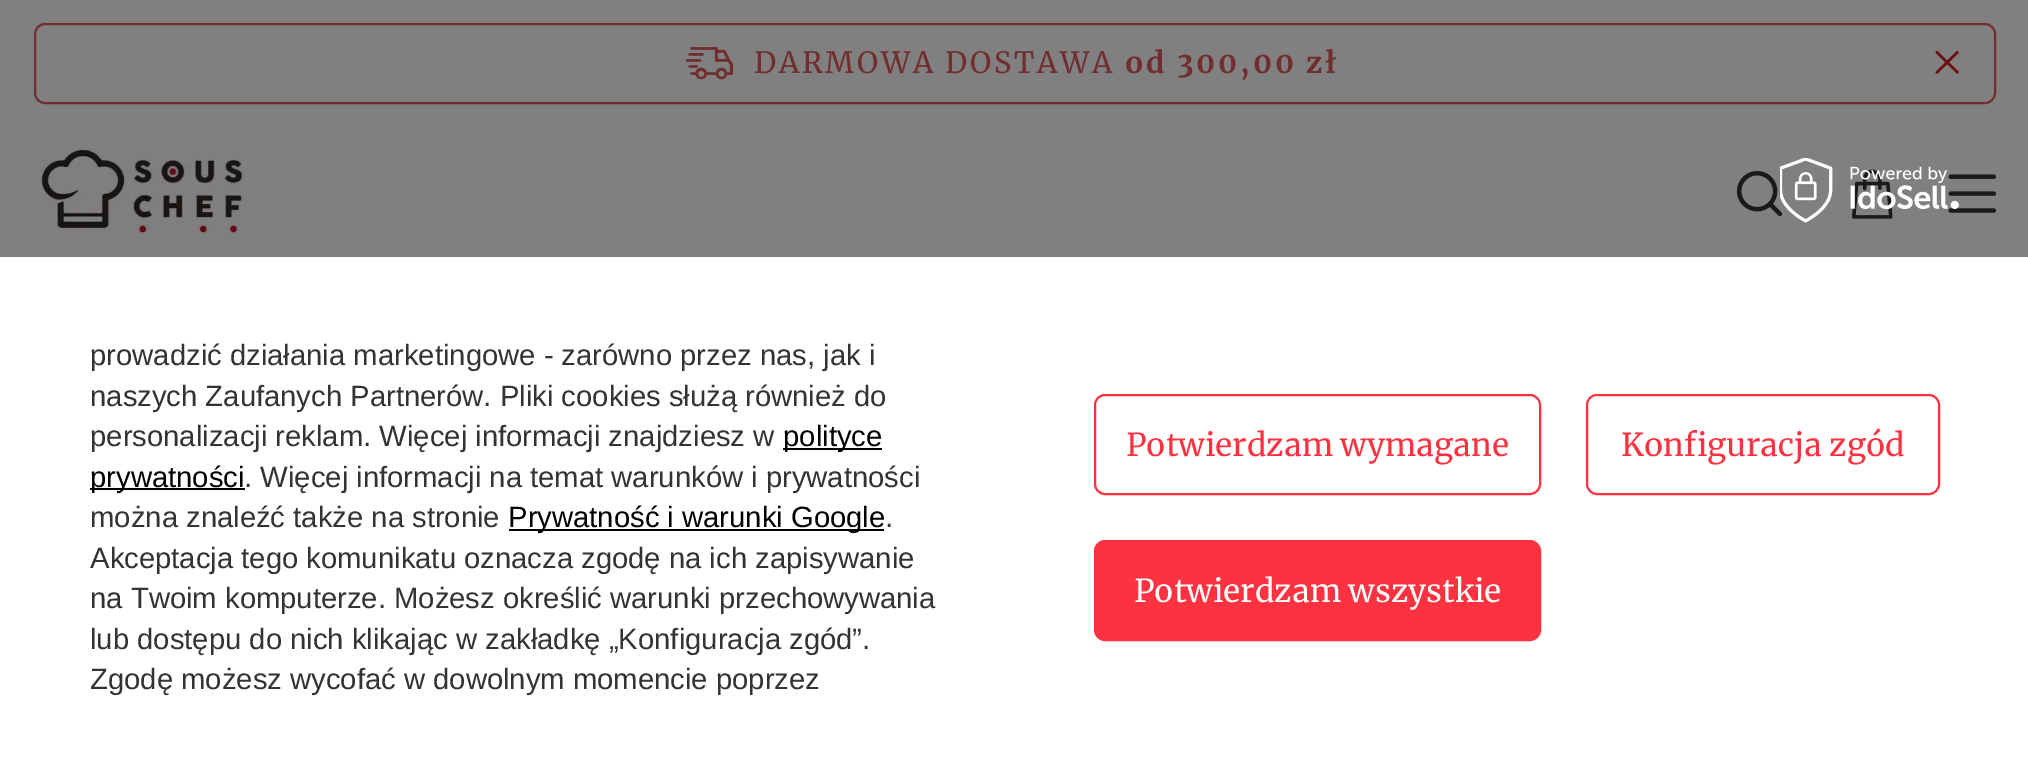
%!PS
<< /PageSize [2028 780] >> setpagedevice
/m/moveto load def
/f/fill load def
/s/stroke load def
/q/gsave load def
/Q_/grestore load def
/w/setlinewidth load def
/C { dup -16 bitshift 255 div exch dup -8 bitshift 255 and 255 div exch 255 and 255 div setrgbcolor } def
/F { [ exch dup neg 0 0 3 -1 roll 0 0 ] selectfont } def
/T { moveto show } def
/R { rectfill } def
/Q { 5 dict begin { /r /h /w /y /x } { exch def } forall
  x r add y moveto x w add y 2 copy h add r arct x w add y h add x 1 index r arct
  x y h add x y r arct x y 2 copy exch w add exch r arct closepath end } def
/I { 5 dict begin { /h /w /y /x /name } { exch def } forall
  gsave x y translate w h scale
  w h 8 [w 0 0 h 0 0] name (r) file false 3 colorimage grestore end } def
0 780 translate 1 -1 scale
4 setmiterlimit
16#808080 C
0 0 2028 780 R
16#722E2E C
2 w
35 24 1960 79 10 Q s
(1.rgb) 685 47 49 33 I
/Merriweather-Regular 29.25 F
754 73 m 2.75 0 (DARMOWA DOSTAWA) ashow
/Merriweather-Bold 29.25 F
1125 73 m 2.75 0 (od 300,00 zł) ashow
(2.rgb) 1935 50 25 24 I
(3.rgb) 41 148 206 90 I
(4.rgb) 1736 171 47 46 I
(5.rgb) 1852 169 41 50 I
(6.rgb) 1948 174 49 39 I
16#FFFFFF C
0 257 2028 523 R
(7.rgb) 1780 158 179 65 I
/LiberationSans-Regular 29.25 F
16#333333 C
(prowadzić działania marketingowe - zarówno przez nas, jak i) 90 365 T
(naszych Zaufanych Partnerów. Pliki cookies służą również do) 90 406 T
(personalizacji reklam. Więcej informacji znajdziesz w) 90 446 T
16#000000 C
783 448 99 2 R
(polityce) 783 446 T
90 488 155 2 R
(prywatności) 90 487 T
16#333333 C
(. Więcej informacji na temat warunków i prywatności) 244 487 T
(można znaleźć także na stronie) 90 527 T
16#000000 C
509 529 375 2 R
(Prywatność i warunki Google) 508 527 T
16#333333 C
(.) 885 527 T
(Akceptacja tego komunikatu oznacza zgodę na ich zapisywanie) 90 568 T
(na Twoim komputerze. Możesz określić warunki przechowywania) 90 608 T
(lub dostępu do nich klikając w zakładkę „Konfiguracja zgód”.) 90 649 T
(Zgodę możesz wycofać w dowolnym momencie poprzez) 90 689 T
16#FC3240 C
1095 395 445 99 10 Q s
/Merriweather-Regular 31.5 F
(Potwierdzam wymagane) 1126 456 T
1587 395 352 99 10 Q s
(Konfiguracja zgód) 1621 456 T
1095 541 445 99 10 Q q f Q_
s
16#FFFFFF C
(Potwierdzam wszystkie) 1134 602 T
showpage
